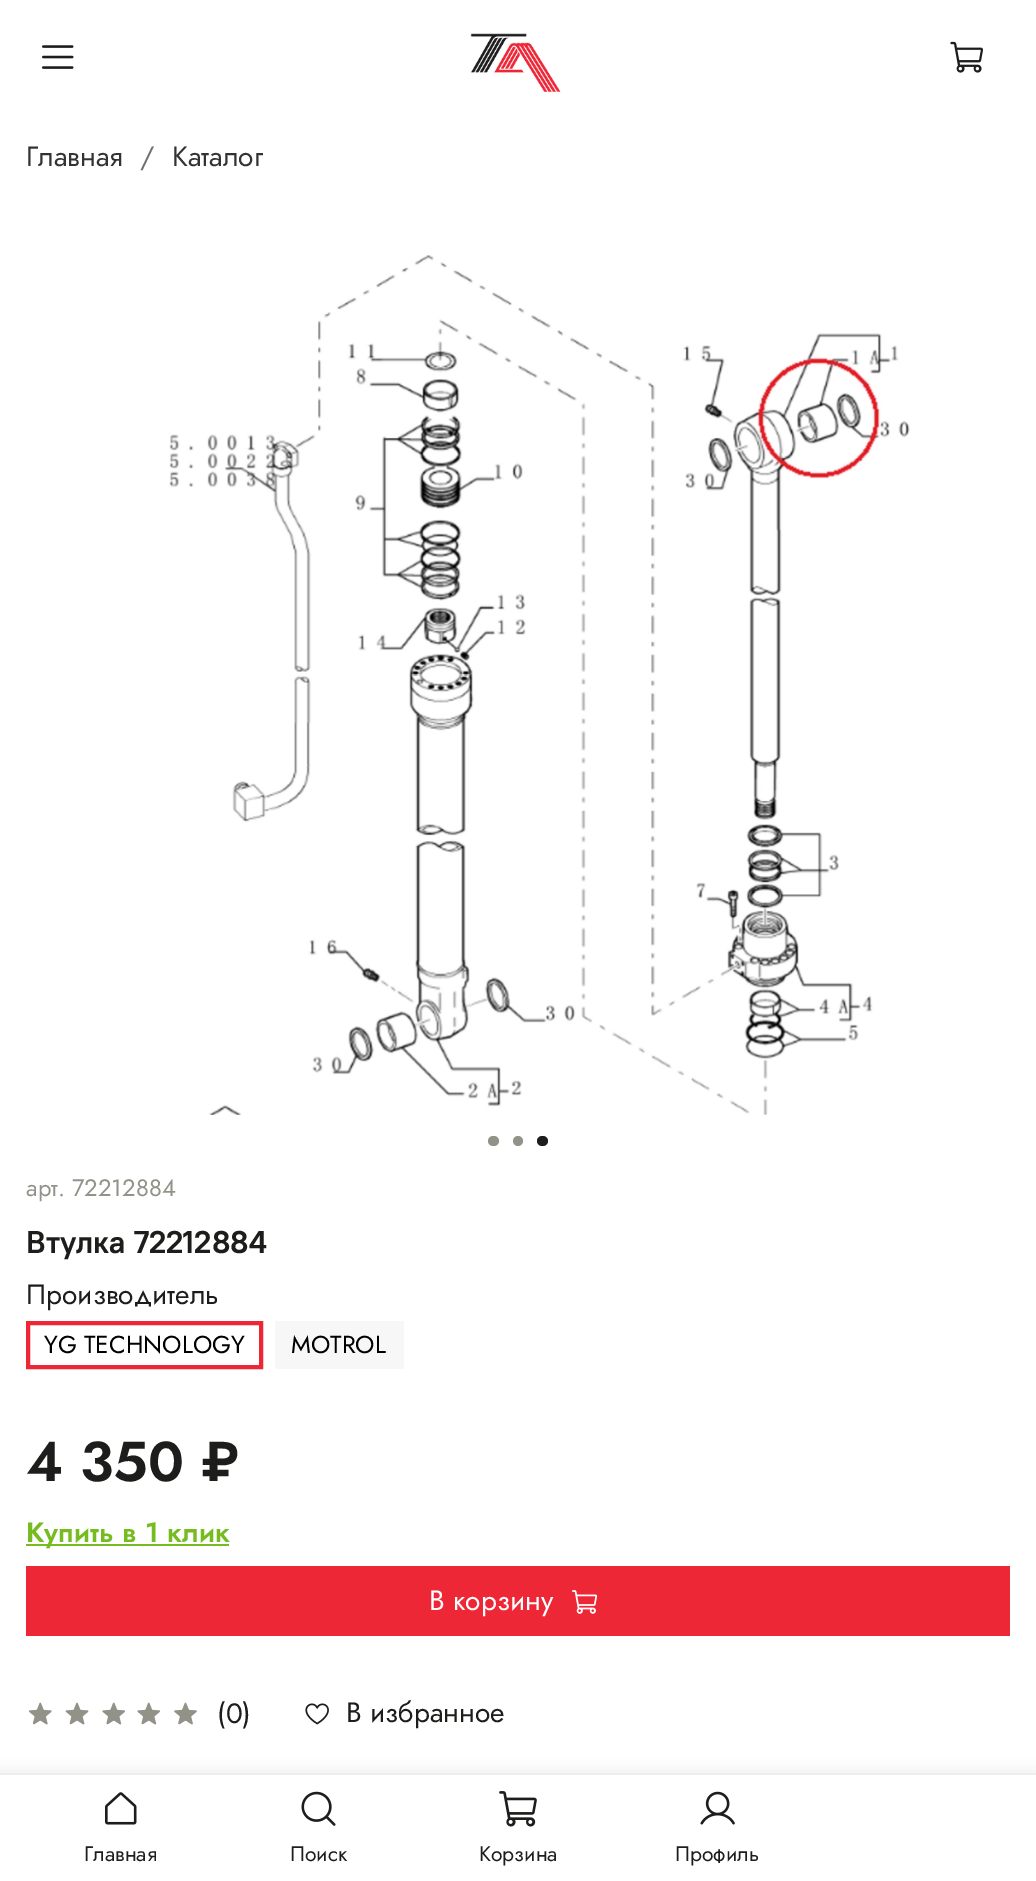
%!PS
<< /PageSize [1036 1881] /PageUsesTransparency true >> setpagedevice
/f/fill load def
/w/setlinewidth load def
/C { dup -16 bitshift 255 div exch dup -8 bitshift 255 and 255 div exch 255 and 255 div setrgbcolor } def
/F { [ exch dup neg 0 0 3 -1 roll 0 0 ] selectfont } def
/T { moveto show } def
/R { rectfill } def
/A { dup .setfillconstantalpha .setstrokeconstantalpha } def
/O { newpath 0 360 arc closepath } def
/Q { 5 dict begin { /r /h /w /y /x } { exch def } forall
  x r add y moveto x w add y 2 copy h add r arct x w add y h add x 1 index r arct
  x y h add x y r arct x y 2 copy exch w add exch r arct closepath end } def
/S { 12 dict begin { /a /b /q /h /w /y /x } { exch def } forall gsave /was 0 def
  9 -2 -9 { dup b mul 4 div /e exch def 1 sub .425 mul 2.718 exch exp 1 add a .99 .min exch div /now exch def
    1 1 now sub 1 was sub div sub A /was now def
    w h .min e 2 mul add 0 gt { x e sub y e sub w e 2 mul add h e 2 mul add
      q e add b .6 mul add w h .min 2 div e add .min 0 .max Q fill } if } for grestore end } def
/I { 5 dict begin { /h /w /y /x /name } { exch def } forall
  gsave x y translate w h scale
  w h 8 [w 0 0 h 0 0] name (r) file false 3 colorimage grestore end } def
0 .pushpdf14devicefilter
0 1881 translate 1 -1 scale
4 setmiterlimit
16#FFFFFF C
0 0 1036 1881 R
(1.rgb) 42 45 32 24 I
(2.rgb) 470 33 91 59 I
(3.rgb) 950 41 33 32 I
/Jost-Regular 28 F
16#333333 C
(Главная) 26 166 T
16#707070 C
(/) 140 166 T
16#333333 C
(Каталог) 172 166 T
(4.rgb) 169 255 741 860 I
16#929289 C
488 1136 11 10 5 Q f
518 1141 5 O f
16#1D1D1B C
537 1136 11 10 5 Q f
/Jost-Regular 23.75 F
16#929289 C
(арт. 72212884) 26 1196 T
/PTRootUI-Bold 31.5 F
16#1D1D1B C
(Втулка 72212884) 26 1253 T
/Jost-Regular 28 F
(Производитель) 26 1304 T
16#EE2737 C
4 w
28 1323 233 44 rectstroke
/Jost-Regular 24.5 F
16#000000 C
(YG TECHNOLOGY) 44 1353 T
16#F7F7F7 C
275 1321 129 48 R
16#000000 C
(MOTROL) 291 1353 T
/Jost-SemiBold 56 F
16#1D1D1B C
(4 350 ₽) 26 1481 T
16#76BC21 C
26 1544 203 2 R
/Jost-SemiBold 28 F
(Купить в 1 клик) 26 1542 T
16#EE2737 C
26 1566 984 70 R
/Jost-Regular 28 F
16#FFFFFF C
(В корзину) 429 1610 T
(5.rgb) 572 1590 26 24 I
(6.rgb) 28 1702 24 23 I
(7.rgb) 65 1702 24 23 I
(8.rgb) 102 1702 24 23 I
(8.rgb) 137 1702 24 23 I
(9.rgb) 174 1702 23 23 I
16#1D1D1B C
(\(0\)) 217 1723 T
(10.rgb) 305 1703 24 22 I
(В избранное) 346 1722 T
16#000000 C
0 1776 1036 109 0 9 .12 S
16#FFFFFF C
0 1775 1036 106 R
16#EDEDED C
0 1773 1036 2 R
(11.rgb) 105 1792 32 33 I
/Jost-Regular 21 F
16#1D1D1B C
(Главная) 84 1861 T
(12.rgb) 301 1791 35 35 I
(Поиск) 290 1861 T
(13.rgb) 499 1791 38 36 I
(Корзина) 479 1861 T
(14.rgb) 700 1791 35 34 I
(Профиль) 675 1861 T
.poppdf14devicefilter showpage
